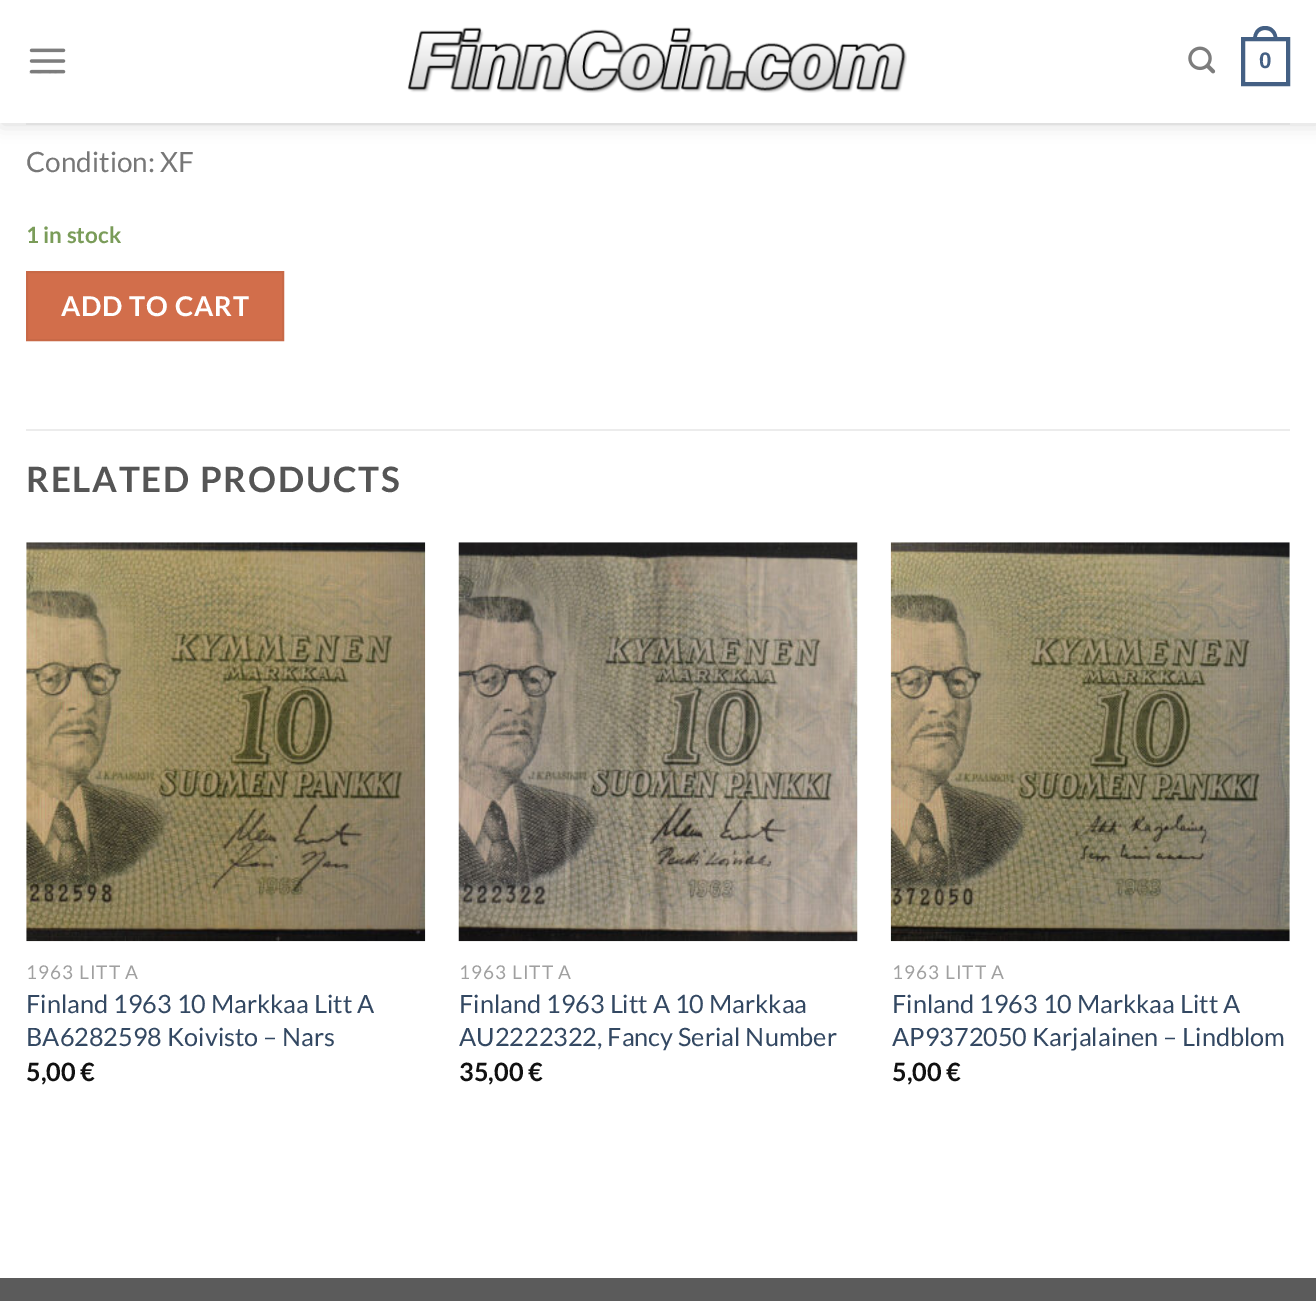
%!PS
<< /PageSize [1316 1301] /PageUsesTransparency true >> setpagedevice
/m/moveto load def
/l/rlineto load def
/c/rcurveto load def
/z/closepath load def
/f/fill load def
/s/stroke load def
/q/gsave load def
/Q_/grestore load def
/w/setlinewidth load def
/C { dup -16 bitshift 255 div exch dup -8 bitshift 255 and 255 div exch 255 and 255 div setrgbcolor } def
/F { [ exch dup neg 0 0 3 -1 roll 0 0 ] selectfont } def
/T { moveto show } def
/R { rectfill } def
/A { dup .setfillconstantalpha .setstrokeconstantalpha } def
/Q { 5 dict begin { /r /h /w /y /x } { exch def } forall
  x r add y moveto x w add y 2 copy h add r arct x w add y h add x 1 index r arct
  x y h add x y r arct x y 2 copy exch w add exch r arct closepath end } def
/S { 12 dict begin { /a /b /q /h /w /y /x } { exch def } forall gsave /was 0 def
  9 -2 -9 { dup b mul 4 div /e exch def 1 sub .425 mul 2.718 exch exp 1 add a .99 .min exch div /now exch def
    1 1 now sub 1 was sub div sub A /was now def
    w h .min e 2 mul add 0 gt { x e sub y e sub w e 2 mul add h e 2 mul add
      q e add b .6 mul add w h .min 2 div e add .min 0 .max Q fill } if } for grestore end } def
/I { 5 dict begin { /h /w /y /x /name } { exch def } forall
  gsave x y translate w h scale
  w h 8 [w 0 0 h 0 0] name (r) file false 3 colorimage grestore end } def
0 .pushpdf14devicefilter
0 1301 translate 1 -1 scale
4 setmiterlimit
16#FFFFFF C
0 0 1316 1301 R
q
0 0 m 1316 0 l 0 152 l -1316 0 l z 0 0 m 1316 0 l 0 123 l -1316 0 l z eoclip newpath
16#000000 C
2 2 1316 122 0 9 .15 S
Q_
(1.rgb) 29 48 37 26 I
(2.rgb) 407 27 500 66 I
(3.rgb) 1188 46 28 28 I
16#446084 C
4 w
1243 39 45 45 rectstroke
1265 26 m 8.5 0 12.5 6.5 12.5 14 c -24.5 0 l 0 -7.5 4 -14 12 -14 c z 1265 30 m 6.5 0 9 4.5 9 10 c -17.5 0 l 0 -5.5 2.5 -10 8.5 -10 c z eofill
/LiberationSans-Bold 22.5 F
(0) 1259 68 T
16#E0E0E0 C
26 123 1264 2 R
0.9 A
16#FFFFFF C
0 122 1316 1 R
/Lato-Regular 28 F
1 A
16#777777 C
(Condition: XF) 26 172 T
/Lato-Bold 22.5 F
16#7A9C59 C
(1 in stock) 26 243 T
16#D26E4B C
27 272 m 256 0 l 0 68 l -256 0 l z q f Q_
16#C86947 C
2 w
s
/Lato-Bold 27.25 F
16#FFFFFF C
61 316 m .75 0 (ADD TO CART) ashow
16#ECECEC C
26 429 1264 2 R
/Lato-Bold 35 F
16#555555 C
26 492 m 1.75 0 (RELATED PRODUCTS) ashow
(4.rgb) 26 542 400 400 I
/Lato-Regular 19 F
16#A0A0A0 C
26 979 m 1 0 (1963 LITT A) ashow
/Lato-Regular 25.25 F
16#334862 C
(Finland 1963 10 Markkaa Litt A) 26 1013 T
(BA6282598 Koivisto – Nars) 26 1046 T
/Lato-Bold 25.25 F
16#111111 C
(5,00 €) 26 1081 T
(5.rgb) 458 542 400 400 I
/Lato-Regular 19 F
16#A0A0A0 C
459 979 m 1 0 (1963 LITT A) ashow
/Lato-Regular 25.25 F
16#334862 C
(Finland 1963 Litt A 10 Markkaa) 459 1013 T
(AU2222322, Fancy Serial Number) 459 1046 T
/Lato-Bold 25.25 F
16#111111 C
(35,00 €) 459 1081 T
(6.rgb) 890 542 400 400 I
/Lato-Regular 19 F
16#A0A0A0 C
892 979 m 1 0 (1963 LITT A) ashow
/Lato-Regular 25.25 F
16#334862 C
(Finland 1963 10 Markkaa Litt A) 892 1013 T
(AP9372050 Karjalainen – Lindblom) 892 1046 T
/Lato-Bold 25.25 F
16#111111 C
(5,00 €) 892 1081 T
16#5B5B5B C
0 1278 1316 23 R
.poppdf14devicefilter showpage
